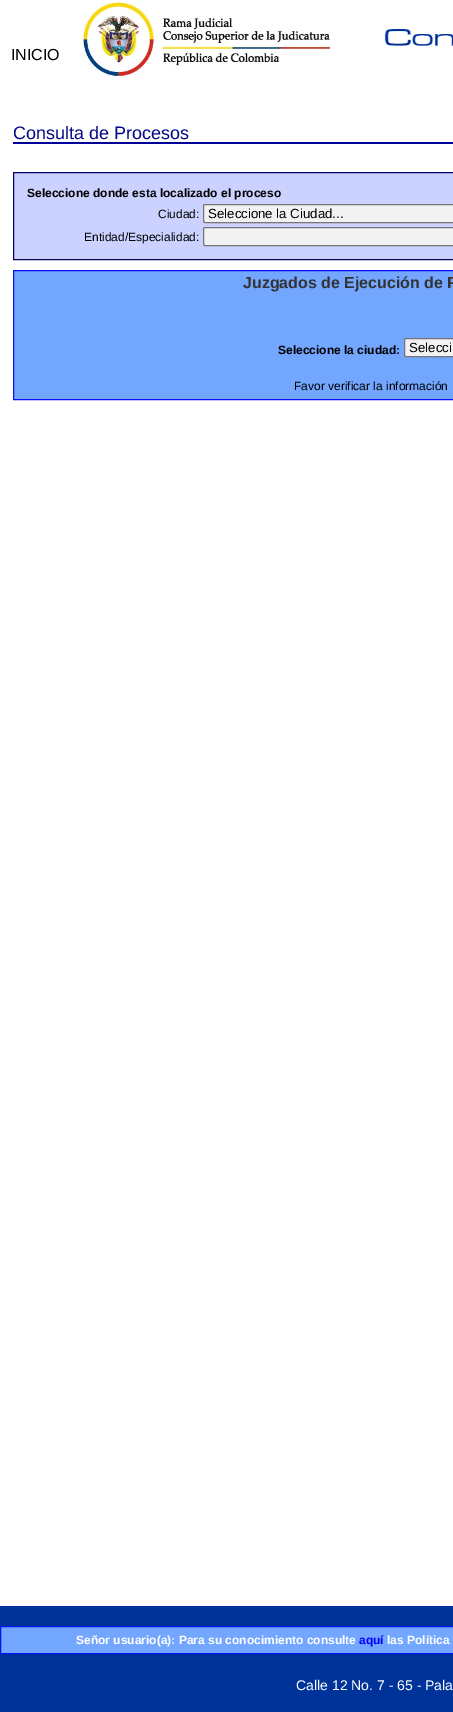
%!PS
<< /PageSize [453 1712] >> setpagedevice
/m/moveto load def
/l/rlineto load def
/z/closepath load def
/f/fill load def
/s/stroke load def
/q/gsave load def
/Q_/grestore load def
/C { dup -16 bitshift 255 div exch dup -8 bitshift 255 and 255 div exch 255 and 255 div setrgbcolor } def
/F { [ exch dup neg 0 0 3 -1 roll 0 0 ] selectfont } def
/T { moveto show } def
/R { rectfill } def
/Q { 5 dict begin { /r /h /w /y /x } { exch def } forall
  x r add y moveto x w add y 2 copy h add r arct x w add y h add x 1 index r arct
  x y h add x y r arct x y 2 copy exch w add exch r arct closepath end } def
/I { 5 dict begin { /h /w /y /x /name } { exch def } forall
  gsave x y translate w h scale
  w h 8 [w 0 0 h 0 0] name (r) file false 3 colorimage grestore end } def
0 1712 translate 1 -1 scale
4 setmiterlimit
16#FFFFFF C
0 0 453 1712 R
/LiberationSans-Regular 16 F
16#000000 C
(INICIO) 11 60 T
(1.rgb) 81 1 372 77 I
16#000099 C
13 142 440 2 R
/LiberationSans-Regular 18 F
16#030987 C
(Consulta de Procesos) 13 139 T
16#CBD2FF C
13.5 172.5 m 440 0 l 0 87 l -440 0 l z q f Q_
16#060362 C
s
/LiberationSans-Bold 12 F
16#000000 C
(Seleccione donde esta localizado el proceso) 27 197 T
/LiberationSans-Regular 12 F
(Ciudad:) 158 218 T
16#F2F2F2 C
203.5 204.5 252 18 1.5 Q q f Q_
16#767676 C
s
/LiberationSans-Regular 13.25 F
16#000000 C
(Seleccione la Ciudad...) 208 218 T
/LiberationSans-Regular 12 F
(Entidad/Especialidad:) 84 241 T
16#F2F2F2 C
203.5 227.5 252 18 1.5 Q q f Q_
16#767676 C
s
16#73A6FF C
13.5 270.5 m 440 0 l 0 129 l -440 0 l z q f Q_
16#0511F3 C
s
/LiberationSans-Bold 16 F
16#333333 C
(Juzgados de Ejecución de P) 243 288 T
/LiberationSans-Bold 12 F
16#000000 C
(Seleccione la ciudad:) 278 354 T
16#F2F2F2 C
404.5 338.5 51 18 1.5 Q q f Q_
16#767676 C
s
/LiberationSans-Regular 13.25 F
16#000000 C
(Selecci) 409 352 T
/LiberationSans-Regular 12 F
(Favor verificar la información) 294 390 T
16#003399 C
0 1606 453 106 R
16#73A6FF C
.5 1626.5 m 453 0 l 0 27 l -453 0 l z q f Q_
16#0511F3 C
s
/LiberationSans-Bold 12 F
16#FFFFFF C
(Señor usuario\(a\): Para su conocimiento consulte) 76 1644 T
16#0000FF C
(aquí) 359 1644 T
16#FFFFFF C
(las Política) 387 1644 T
/LiberationSans-Regular 14 F
(Calle 12 No. 7 - 65 - Pala) 296 1690 T
showpage
